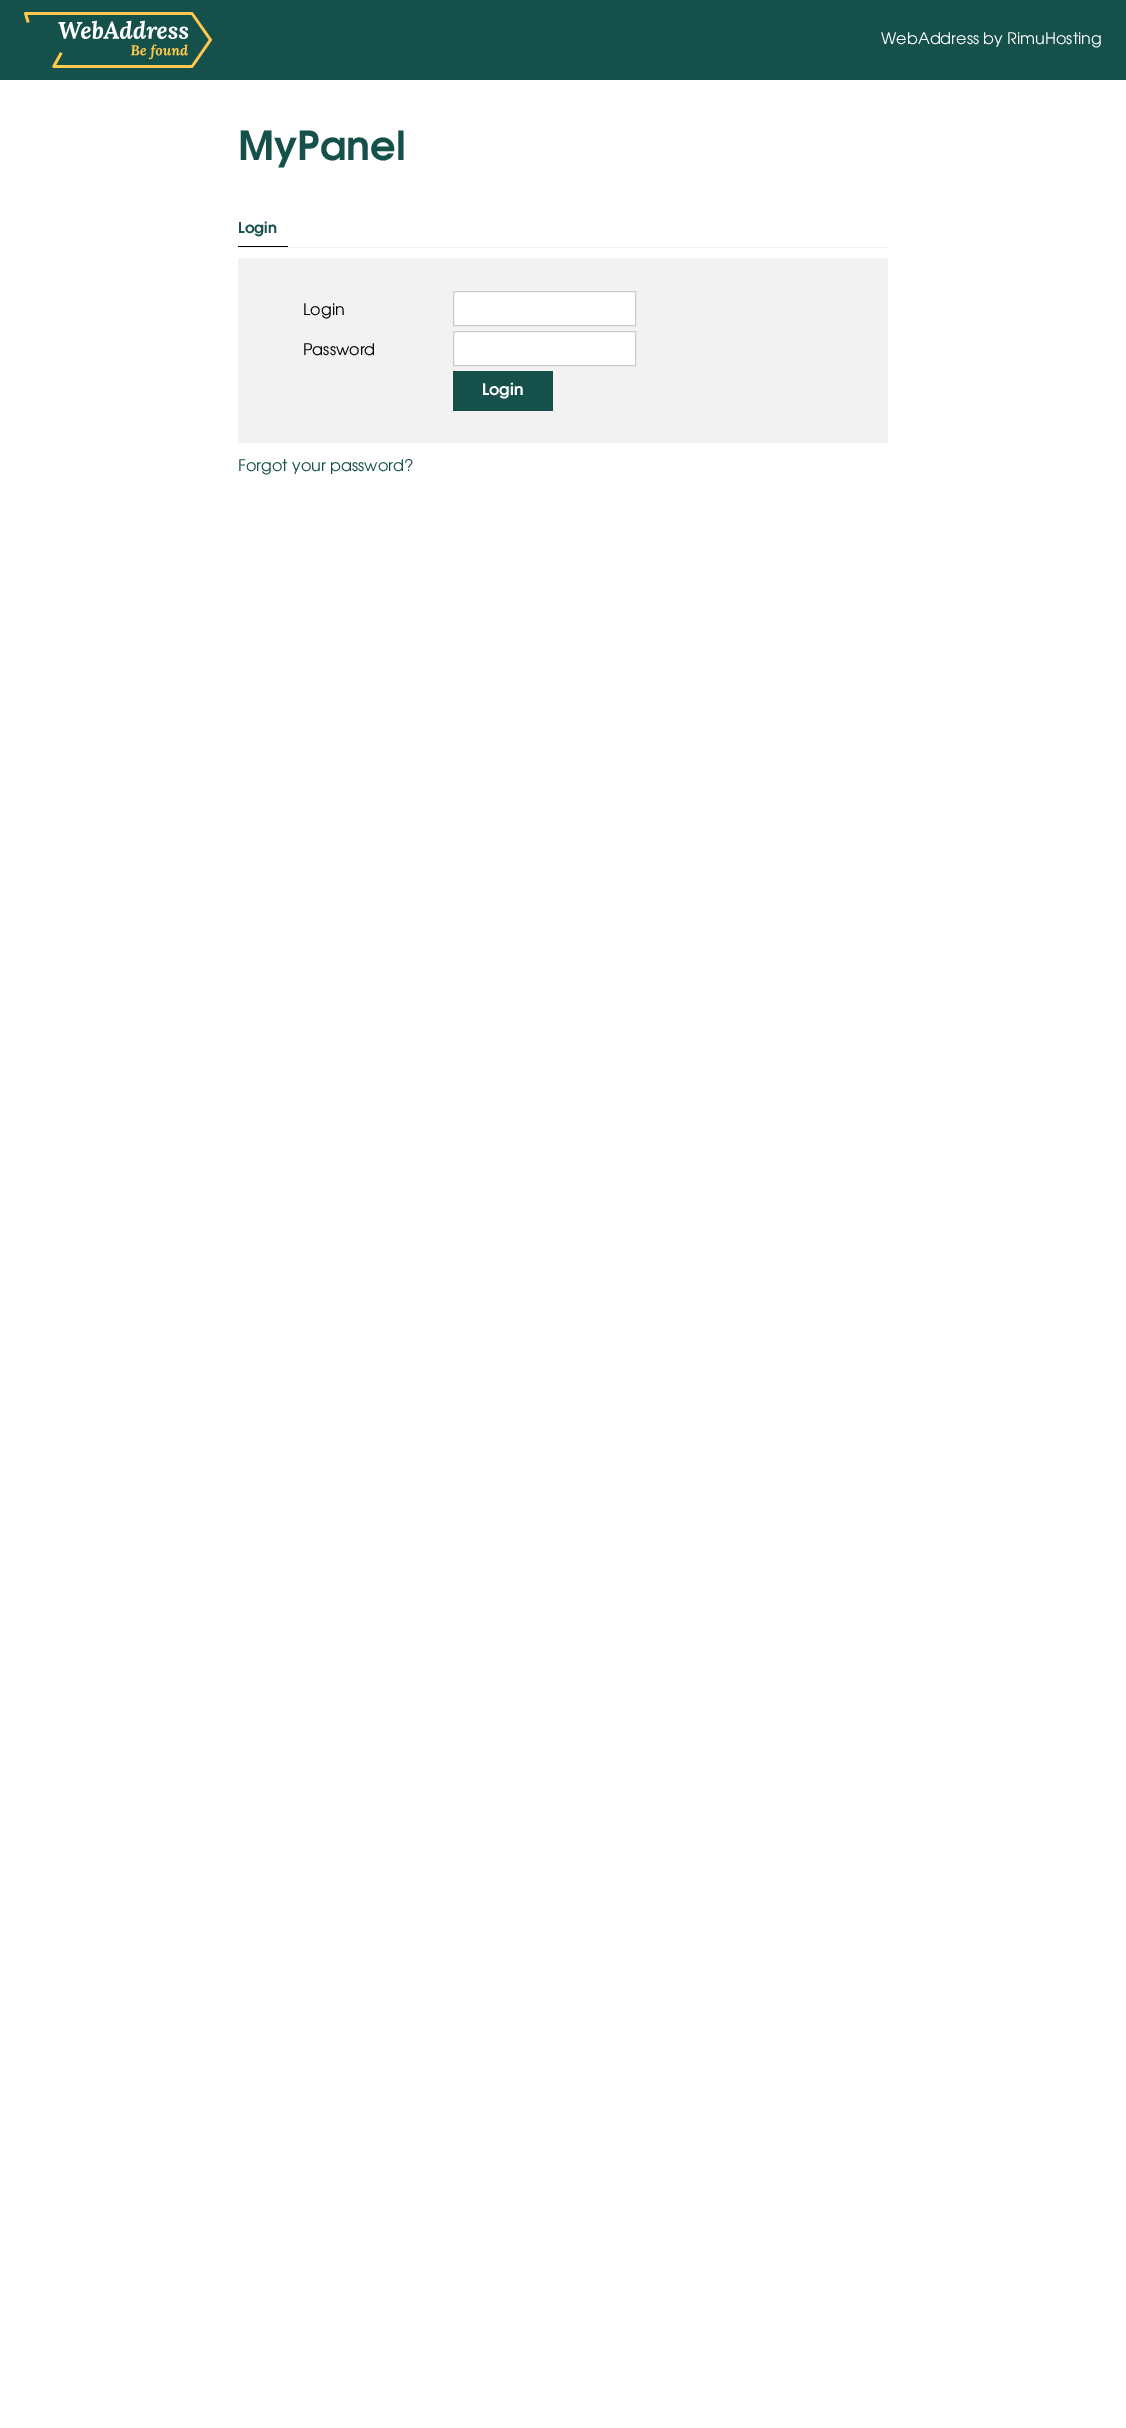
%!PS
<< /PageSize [1126 2428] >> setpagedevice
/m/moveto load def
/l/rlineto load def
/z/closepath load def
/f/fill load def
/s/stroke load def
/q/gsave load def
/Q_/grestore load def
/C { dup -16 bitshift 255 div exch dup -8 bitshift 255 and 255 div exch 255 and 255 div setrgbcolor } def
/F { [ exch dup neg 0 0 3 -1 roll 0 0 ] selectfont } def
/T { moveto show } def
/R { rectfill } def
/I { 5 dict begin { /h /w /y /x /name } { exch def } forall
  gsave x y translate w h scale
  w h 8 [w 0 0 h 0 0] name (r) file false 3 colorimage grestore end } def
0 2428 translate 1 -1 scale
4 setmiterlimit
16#FFFFFF C
0 0 1126 2428 R
16#15504A C
0 0 1126 80 R
(1.rgb) 24 12 188 56 I
/TeXGyreAdventor-Regular 16 F
16#FFFFFF C
(WebAddress by RimuHosting) 881 44 T
/TeXGyreAdventor-Bold 40 F
16#15504A C
(MyPanel) 238 160 T
16#000000 C
238 246 50 1 R
/TeXGyreAdventor-Bold 15 F
16#15504A C
(Login) 238 233 T
16#F2F2F2 C
238 247 650 1 R
238 258 650 185 R
/TeXGyreAdventor-Regular 16 F
16#000000 C
(Login) 303 315 T
16#FFFFFF C
453.5 291.5 m 182 0 l 0 34 l -182 0 l z q f Q_
16#CCCCCC C
s
16#000000 C
(Password) 303 355 T
16#FFFFFF C
453.5 331.5 m 182 0 l 0 34 l -182 0 l z q f Q_
16#CCCCCC C
s
16#15504A C
453 371 100 40 R
/TeXGyreAdventor-Bold 16 F
16#FFFFFF C
(Login) 482 395 T
/TeXGyreAdventor-Regular 16 F
16#15504A C
(Forgot your password?) 238 471 T
showpage
